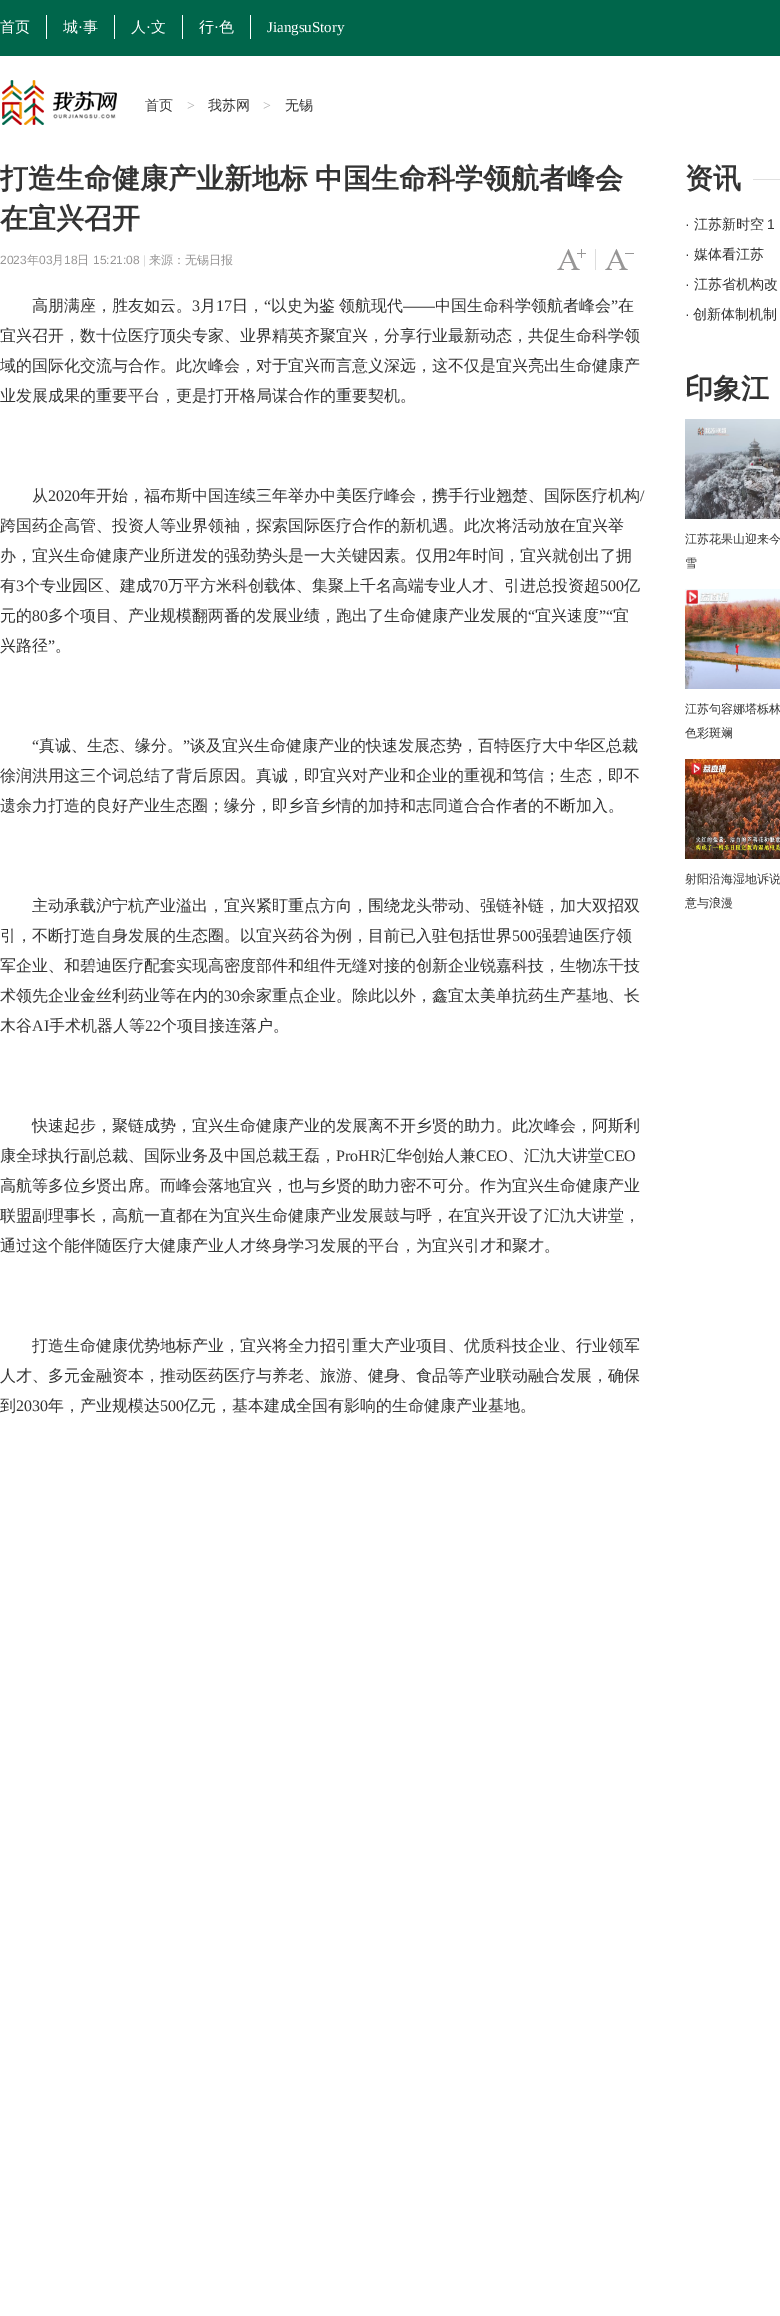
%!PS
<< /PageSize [780 2316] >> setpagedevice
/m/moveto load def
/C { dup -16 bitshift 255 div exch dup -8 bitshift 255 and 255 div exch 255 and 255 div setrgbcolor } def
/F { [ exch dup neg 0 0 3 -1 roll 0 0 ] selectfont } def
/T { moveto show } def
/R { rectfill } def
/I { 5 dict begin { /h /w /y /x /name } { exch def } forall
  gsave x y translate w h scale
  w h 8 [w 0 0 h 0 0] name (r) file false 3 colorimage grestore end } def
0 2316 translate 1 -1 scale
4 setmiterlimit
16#FFFFFF C
0 0 780 2316 R
16#00664B C
0 0 780 56 R
16#FFFFFF C
46 15 1 24 R
/WenQuanYiZenHei-Medium 15 F
(首页) 0 32 T
114 15 1 24 R
(城) 63 32 T
/LiberationSerif-Regular 15 F
(·) 78 32 T
/WenQuanYiZenHei-Medium 15 F
(事) 83 32 T
182 15 1 24 R
(人) 131 32 T
/LiberationSerif-Regular 15 F
(·) 146 32 T
/WenQuanYiZenHei-Medium 15 F
(文) 151 32 T
250 15 1 24 R
(行) 199 32 T
/LiberationSerif-Regular 15 F
(·) 214 32 T
/WenQuanYiZenHei-Medium 15 F
(色) 219 32 T
/LiberationSerif-Regular 15 F
(JiangsuStory) 267 32 T
(1.rgb) 2 80 115 45 I
/WenQuanYiZenHei-Medium 14 F
16#333333 C
(首页) 145 110 T
/LiberationSerif-Regular 14 F
16#AAAAAA C
(>) 187 110 T
/WenQuanYiZenHei-Medium 14 F
16#333333 C
(我苏网) 208 110 T
/LiberationSerif-Regular 14 F
16#AAAAAA C
(>) 263 110 T
/WenQuanYiZenHei-Medium 14 F
16#333333 C
(无锡) 285 110 T
/WenQuanYiZenHei-Bold 28 F
0 188 m -1 0 32 (打造生命健康产业新地标 中国生命科学领航者峰会) widthshow
(在宜兴召开) 0 228 T
/LiberationSans-Regular 12 F
16#979696 C
(2023) 0 264 T
/WenQuanYiZenHei-Medium 12 F
(年) 27 264 T
/LiberationSans-Regular 12 F
(03) 39 264 T
/WenQuanYiZenHei-Medium 12 F
(月) 52 264 T
/LiberationSans-Regular 12 F
(18) 64 264 T
/WenQuanYiZenHei-Medium 12 F
(日) 77 264 T
/LiberationSans-Regular 12 F
(15:21:08) 93 264 T
16#DDDDDD C
(|) 143 264 T
/WenQuanYiZenHei-Medium 12 F
16#979696 C
(来源：无锡日报) 149 264 T
(2.rgb) 557 249 29 21 I
16#DDDDDD C
595 249 1 21 R
(3.rgb) 605 249 29 21 I
/WenQuanYiZenHei-Medium 16 F
16#333333 C
(高朋满座，胜友如云。) 32 311 T
/LiberationSerif-Regular 16 F
(3) 192 311 T
/WenQuanYiZenHei-Medium 16 F
(月) 200 311 T
/LiberationSerif-Regular 16 F
(17) 216 311 T
/WenQuanYiZenHei-Medium 16 F
(日，) 232 311 T
/LiberationSerif-Regular 16 F
(“) 264 311 T
/WenQuanYiZenHei-Medium 16 F
271 311 m -1 0 32 (以史为鉴 领航现代) widthshow
/LiberationSerif-Regular 16 F
(——) 403 311 T
/WenQuanYiZenHei-Medium 16 F
(中国生命科学领航者峰会) 435 311 T
/LiberationSerif-Regular 16 F
(”) 611 311 T
/WenQuanYiZenHei-Medium 16 F
(在) 618 311 T
(宜兴召开，数十位医疗顶尖专家、业界精英齐聚宜兴，分享行业最新动态，共促生命科学领) 0 341 T
(域的国际化交流与合作。此次峰会，对于宜兴而言意义深远，这不仅是宜兴亮出生命健康产) 0 371 T
(业发展成果的重要平台，更是打开格局谋合作的重要契机。) 0 401 T
(从) 32 501 T
/LiberationSerif-Regular 16 F
(2020) 48 501 T
/WenQuanYiZenHei-Medium 16 F
(年开始，福布斯中国连续三年举办中美医疗峰会，携手行业翘楚、国际医疗机构) 80 501 T
/LiberationSerif-Regular 16 F
(/) 640 501 T
/WenQuanYiZenHei-Medium 16 F
(跨国药企高管、投资人等业界领袖，探索国际医疗合作的新机遇。此次将活动放在宜兴举) 0 531 T
(办，宜兴生命健康产业所迸发的强劲势头是一大关键因素。仅用) 0 561 T
/LiberationSerif-Regular 16 F
(2) 448 561 T
/WenQuanYiZenHei-Medium 16 F
(年时间，宜兴就创出了拥) 456 561 T
(有) 0 591 T
/LiberationSerif-Regular 16 F
(3) 16 591 T
/WenQuanYiZenHei-Medium 16 F
(个专业园区、建成) 24 591 T
/LiberationSerif-Regular 16 F
(70) 152 591 T
/WenQuanYiZenHei-Medium 16 F
(万平方米科创载体、集聚上千名高端专业人才、引进总投资超) 168 591 T
/LiberationSerif-Regular 16 F
(500) 600 591 T
/WenQuanYiZenHei-Medium 16 F
(亿) 624 591 T
(元的) 0 621 T
/LiberationSerif-Regular 16 F
(80) 32 621 T
/WenQuanYiZenHei-Medium 16 F
(多个项目、产业规模翻两番的发展业绩，跑出了生命健康产业发展的) 48 621 T
/LiberationSerif-Regular 16 F
(“) 528 621 T
/WenQuanYiZenHei-Medium 16 F
(宜兴速度) 535 621 T
/LiberationSerif-Regular 16 F
(”“) 599 621 T
/WenQuanYiZenHei-Medium 16 F
(宜) 613 621 T
(兴路径) 0 651 T
/LiberationSerif-Regular 16 F
(”) 48 651 T
/WenQuanYiZenHei-Medium 16 F
(。) 55 651 T
/LiberationSerif-Regular 16 F
(“) 32 751 T
/WenQuanYiZenHei-Medium 16 F
(真诚、生态、缘分。) 39 751 T
/LiberationSerif-Regular 16 F
(”) 183 751 T
/WenQuanYiZenHei-Medium 16 F
(谈及宜兴生命健康产业的快速发展态势，百特医疗大中华区总裁) 190 751 T
(徐润洪用这三个词总结了背后原因。真诚，即宜兴对产业和企业的重视和笃信；生态，即不) 0 781 T
(遗余力打造的良好产业生态圈；缘分，即乡音乡情的加持和志同道合合作者的不断加入。) 0 811 T
(主动承载沪宁杭产业溢出，宜兴紧盯重点方向，围绕龙头带动、强链补链，加大双招双) 32 911 T
(引，不断打造自身发展的生态圈。以宜兴药谷为例，目前已入驻包括世界) 0 941 T
/LiberationSerif-Regular 16 F
(500) 512 941 T
/WenQuanYiZenHei-Medium 16 F
(强碧迪医疗领) 536 941 T
(军企业、和碧迪医疗配套实现高密度部件和组件无缝对接的创新企业锐嘉科技，生物冻干技) 0 971 T
(术领先企业金丝利药业等在内的) 0 1001 T
/LiberationSerif-Regular 16 F
(30) 224 1001 T
/WenQuanYiZenHei-Medium 16 F
(余家重点企业。除此以外，鑫宜太美单抗药生产基地、长) 240 1001 T
(木谷) 0 1031 T
/LiberationSerif-Regular 16 F
(AI) 32 1031 T
/WenQuanYiZenHei-Medium 16 F
(手术机器人等) 49 1031 T
/LiberationSerif-Regular 16 F
(22) 145 1031 T
/WenQuanYiZenHei-Medium 16 F
(个项目接连落户。) 161 1031 T
(快速起步，聚链成势，宜兴生命健康产业的发展离不开乡贤的助力。此次峰会，阿斯利) 32 1131 T
(康全球执行副总裁、国际业务及中国总裁王磊，) 0 1161 T
/LiberationSerif-Regular 16 F
(ProHR) 336 1161 T
/WenQuanYiZenHei-Medium 16 F
(汇华创始人兼) 380 1161 T
/LiberationSerif-Regular 16 F
(CEO) 476 1161 T
/WenQuanYiZenHei-Medium 16 F
(、汇氿大讲堂) 508 1161 T
/LiberationSerif-Regular 16 F
(CEO) 604 1161 T
/WenQuanYiZenHei-Medium 16 F
(高航等多位乡贤出席。而峰会落地宜兴，也与乡贤的助力密不可分。作为宜兴生命健康产业) 0 1191 T
(联盟副理事长，高航一直都在为宜兴生命健康产业发展鼓与呼，在宜兴开设了汇氿大讲堂，) 0 1221 T
(通过这个能伴随医疗大健康产业人才终身学习发展的平台，为宜兴引才和聚才。) 0 1251 T
(打造生命健康优势地标产业，宜兴将全力招引重大产业项目、优质科技企业、行业领军) 32 1351 T
(人才、多元金融资本，推动医药医疗与养老、旅游、健身、食品等产业联动融合发展，确保) 0 1381 T
(到) 0 1411 T
/LiberationSerif-Regular 16 F
(2030) 16 1411 T
/WenQuanYiZenHei-Medium 16 F
(年，产业规模达) 48 1411 T
/LiberationSerif-Regular 16 F
(500) 160 1411 T
/WenQuanYiZenHei-Medium 16 F
(亿元，基本建成全国有影响的生命健康产业基地。) 184 1411 T
16#E0E0E0 C
753 179 27 1 R
/WenQuanYiZenHei-Bold 28 F
16#333333 C
(资讯) 685 188 T
/LiberationSans-Regular 14 F
(·) 685 229 T
/WenQuanYiZenHei-Medium 14 F
(江苏新时空) 694 229 T
/LiberationSans-Regular 14 F
(1) 767 229 T
(·) 685 259 T
/WenQuanYiZenHei-Medium 14 F
(媒体看江苏) 694 259 T
/LiberationSans-Regular 14 F
(·) 685 289 T
/WenQuanYiZenHei-Medium 14 F
(江苏省机构改) 694 289 T
/LiberationSans-Regular 14 F
(·) 685 319 T
/WenQuanYiZenHei-Medium 14 F
(创新体制机制) 693 319 T
/WenQuanYiZenHei-Bold 28 F
(印象江) 685 398 T
(4.rgb) 685 419 95 100 I
/WenQuanYiZenHei-Medium 12 F
(江苏花果山迎来今) 685 543 T
(雪) 685 567 T
(5.rgb) 685 589 95 100 I
(江苏句容娜塔栎林) 685 713 T
(色彩斑斓) 685 737 T
(6.rgb) 685 759 95 100 I
(射阳沿海湿地诉说) 685 883 T
(意与浪漫) 685 907 T
showpage
